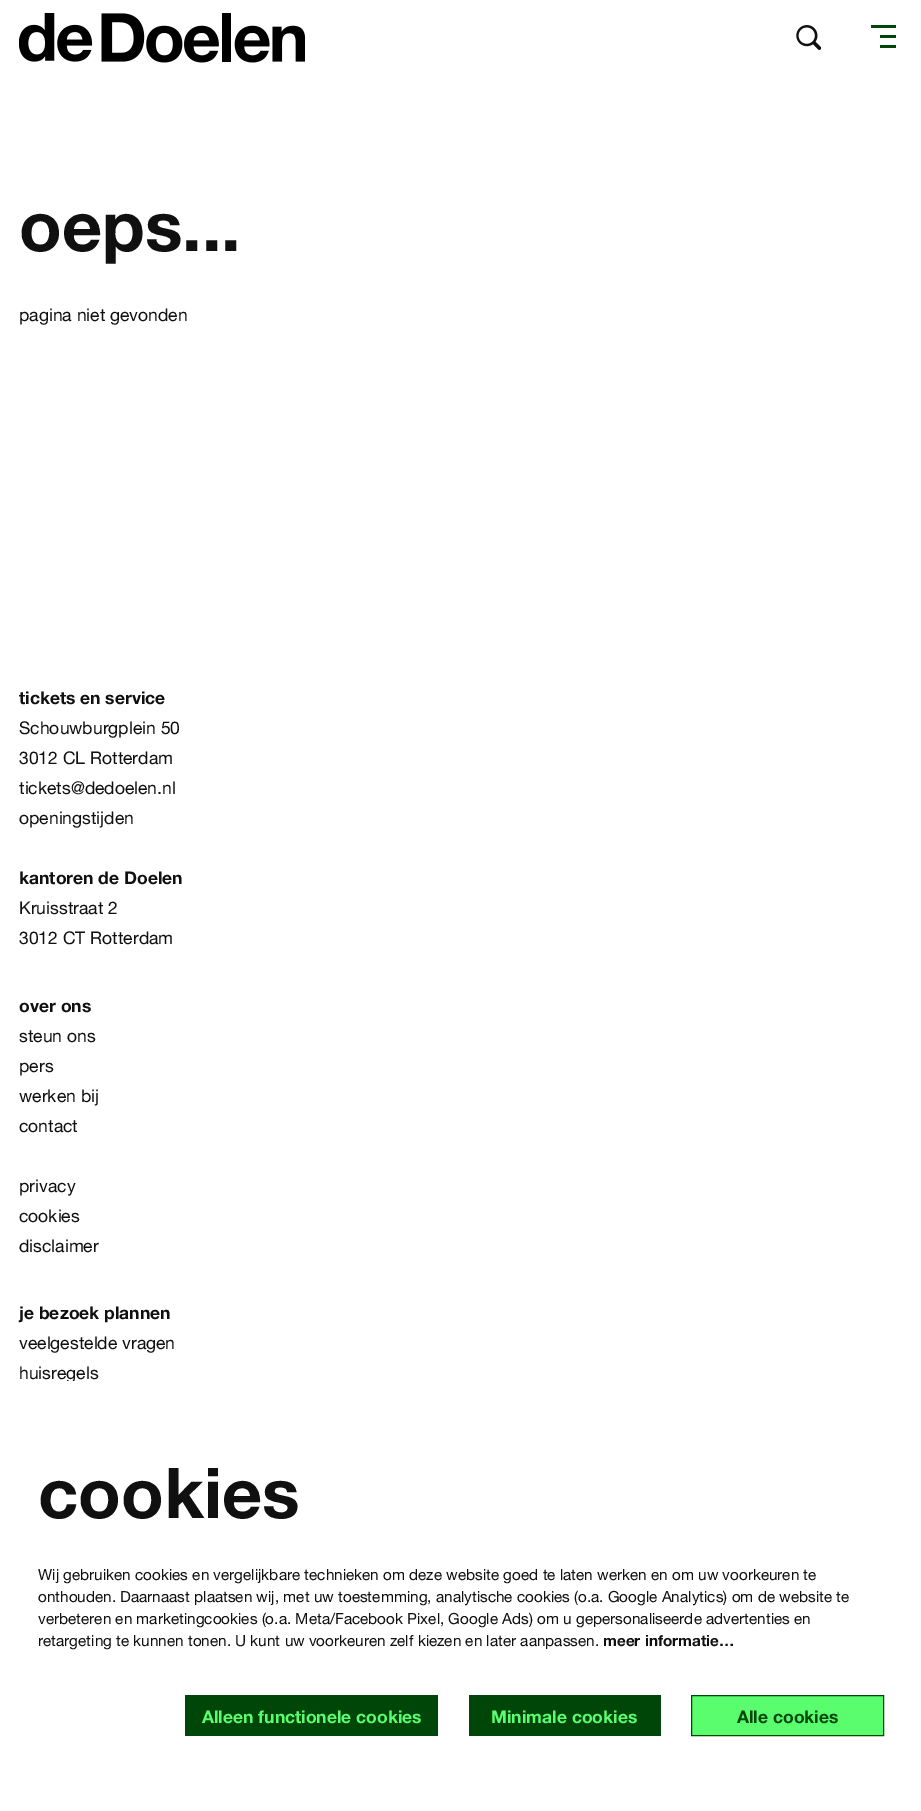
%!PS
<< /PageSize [921 1811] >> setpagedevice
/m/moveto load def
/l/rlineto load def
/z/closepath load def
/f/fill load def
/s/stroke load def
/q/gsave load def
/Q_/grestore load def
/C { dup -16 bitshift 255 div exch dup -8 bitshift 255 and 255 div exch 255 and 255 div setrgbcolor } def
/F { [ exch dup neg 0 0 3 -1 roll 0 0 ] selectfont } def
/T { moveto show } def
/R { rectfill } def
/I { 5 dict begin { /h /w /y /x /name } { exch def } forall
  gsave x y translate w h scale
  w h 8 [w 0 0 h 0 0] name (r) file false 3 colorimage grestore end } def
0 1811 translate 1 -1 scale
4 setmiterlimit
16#FFFFFF C
0 0 921 1811 R
(1.rgb) 19 13 286 50 I
(2.rgb) 796 25 25 25 I
16#014609 C
871 25 25 3 R
880 35 16 3 R
880 45 16 3 R
/HelveticaNeue-Bold 70 F
16#101010 C
(oeps...) 19 251 T
/HelveticaNeue-Regular 17.5 F
(pagina niet gevonden) 19 321 T
/HelveticaNeue-Bold 17.5 F
(tickets en service) 19 704 T
/HelveticaNeue-Regular 17.5 F
(Schouwburgplein 50) 19 734 T
(3012 CL Rotterdam) 19 764 T
(tickets@dedoelen.nl) 19 794 T
(openingstijden) 19 824 T
/HelveticaNeue-Bold 17.5 F
(kantoren de Doelen) 19 884 T
/HelveticaNeue-Regular 17.5 F
(Kruisstraat 2) 19 914 T
(3012 CT Rotterdam) 19 944 T
/HelveticaNeue-Bold 17.5 F
(over ons) 19 1012 T
/HelveticaNeue-Regular 17.5 F
(steun ons) 19 1042 T
(pers) 19 1072 T
(werken bij) 19 1102 T
(contact) 19 1132 T
(privacy) 19 1192 T
(cookies) 19 1222 T
(disclaimer) 19 1252 T
/HelveticaNeue-Bold 17.5 F
(je bezoek plannen) 19 1319 T
/HelveticaNeue-Regular 17.5 F
(veelgestelde vragen) 19 1349 T
(huisregels) 19 1379 T
16#FFFFFF C
67 1381 8 2 R
/HelveticaNeue-Bold 70 F
16#101010 C
(cookies) 38 1518 T
/HelveticaNeue-Regular 15.3 F
(Wij gebruiken cookies en vergelijkbare technieken om deze website goed te laten werken en om uw voorkeuren te) 38 1580 T
(onthouden. Daarnaast plaatsen wij, met uw toestemming, analytische cookies \(o.a. Google Analytics\) om de website te) 38 1602 T
(verbeteren en marketingcookies \(o.a. Meta/Facebook Pixel, Google Ads\) om u gepersonaliseerde advertenties en) 38 1624 T
(retargeting te kunnen tonen. U kunt uw voorkeuren zelf kiezen en later aanpassen.) 38 1646 T
/HelveticaNeue-Bold 15.3 F
(meer informatie…) 603 1646 T
16#014609 C
185 1695 253 41 R
/HelveticaNeue-Bold 17.5 F
16#59FD6D C
(Alleen functionele cookies) 202 1723 T
16#014609 C
469 1695 192 41 R
16#59FD6D C
(Minimale cookies) 491 1723 T
691.5 1695.5 m 192 0 l 0 40 l -192 0 l z q f Q_
16#014609 C
s
(Alle cookies) 737 1723 T
showpage
